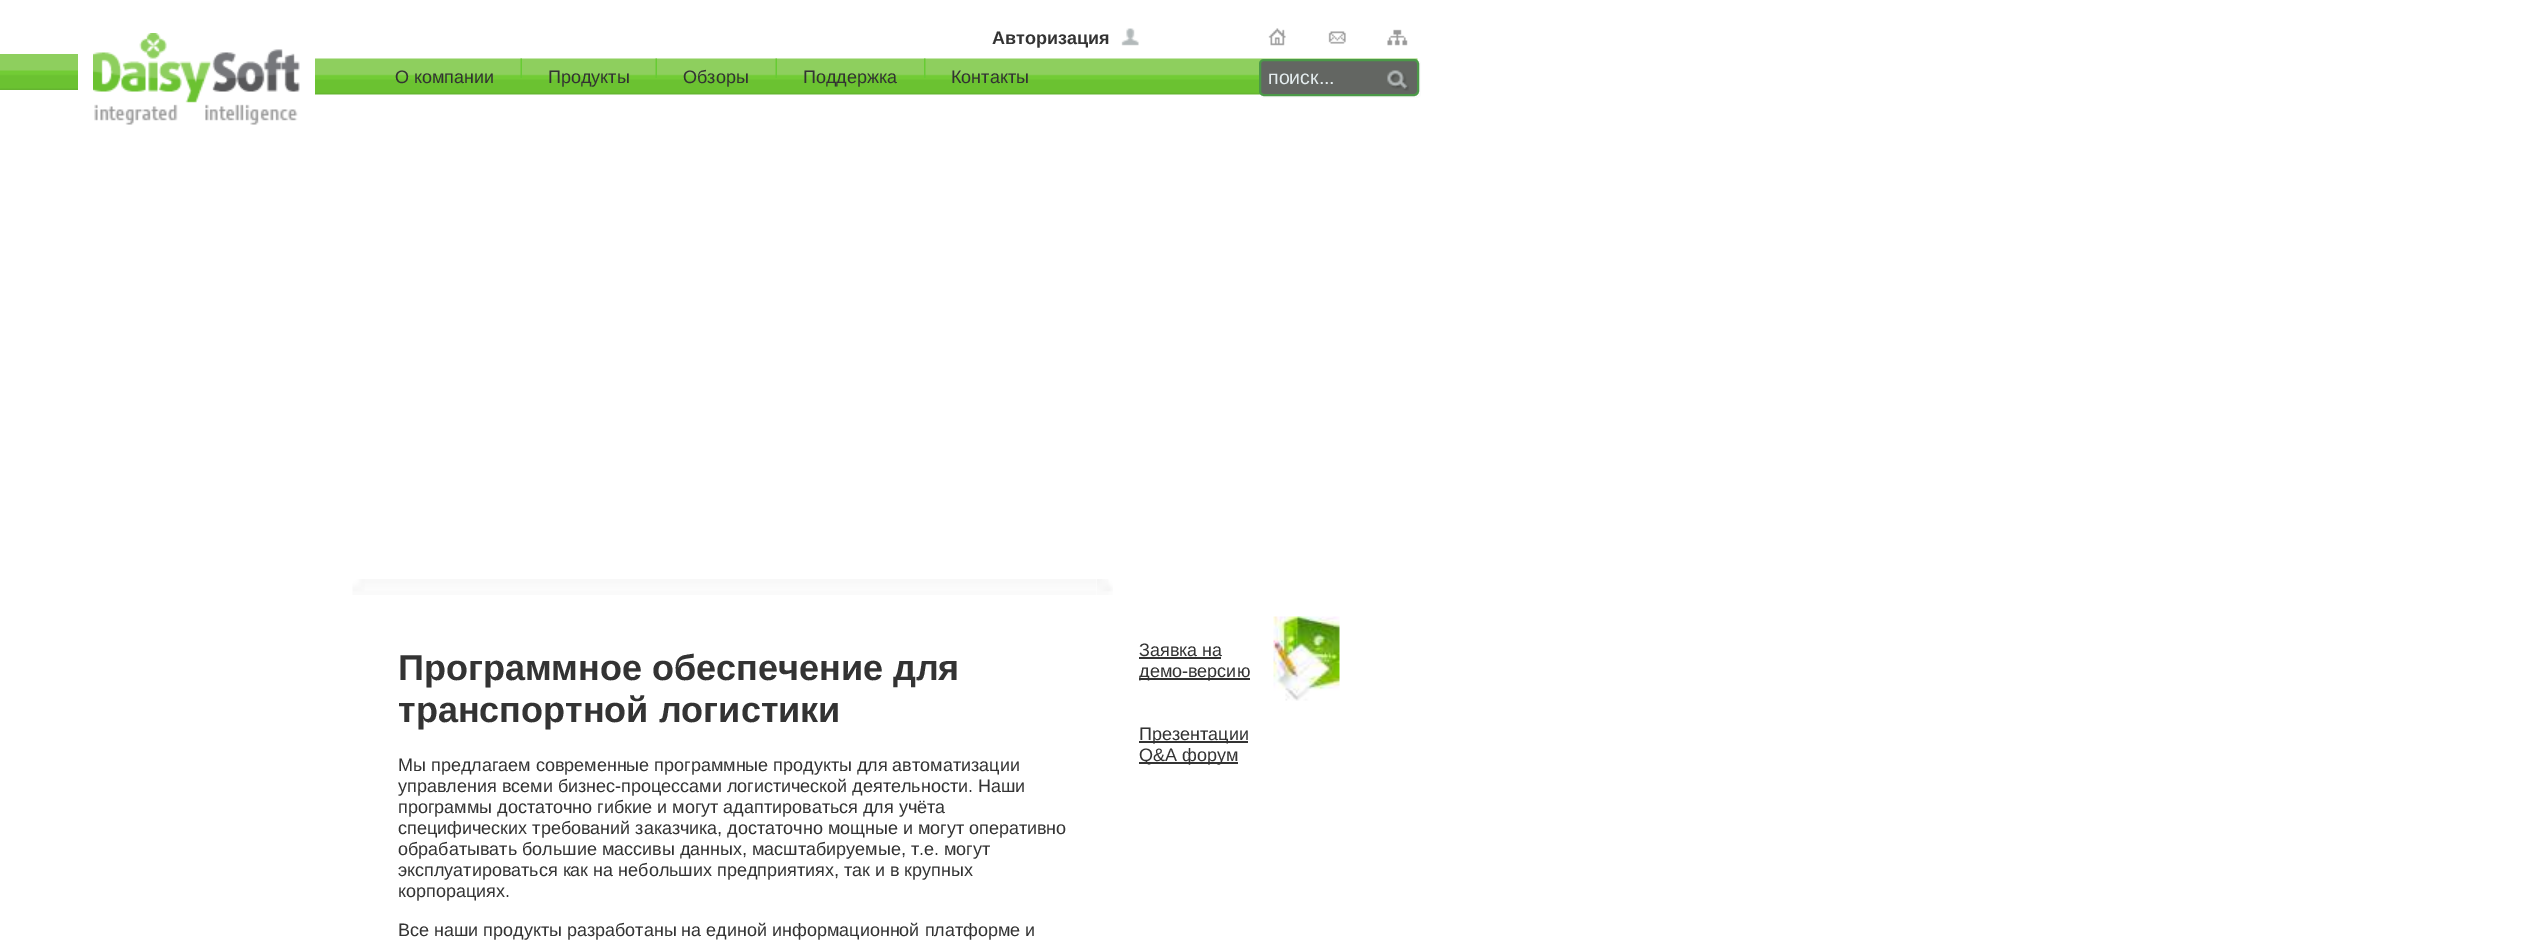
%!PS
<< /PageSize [2545 946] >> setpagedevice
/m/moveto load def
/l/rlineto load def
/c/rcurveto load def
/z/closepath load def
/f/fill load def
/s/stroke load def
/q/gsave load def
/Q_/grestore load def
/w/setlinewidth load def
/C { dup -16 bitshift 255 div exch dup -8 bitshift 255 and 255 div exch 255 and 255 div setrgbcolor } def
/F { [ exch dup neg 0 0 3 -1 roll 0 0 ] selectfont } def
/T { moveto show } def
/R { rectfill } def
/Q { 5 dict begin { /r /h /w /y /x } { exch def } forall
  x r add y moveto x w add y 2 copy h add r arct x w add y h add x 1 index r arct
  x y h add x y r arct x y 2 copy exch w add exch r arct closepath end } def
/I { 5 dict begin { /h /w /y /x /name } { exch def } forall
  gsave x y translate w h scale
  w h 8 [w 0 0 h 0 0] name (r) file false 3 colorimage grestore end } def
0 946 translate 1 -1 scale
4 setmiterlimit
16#FFFFFF C
0 0 2545 946 R
(1.rgb) 0 54 78 36 I
(2.rgb) 93 33 207 92 I
(3.rgb) 315 58 1103 37 I
/LiberationSans-Regular 18 F
16#333333 C
(О компании) 395 83 T
(4.rgb) 520 58 2 20 I
(Продукты) 548 83 T
(4.rgb) 655 58 2 20 I
(Обзоры) 683 83 T
(4.rgb) 775 58 2 20 I
(Поддержка) 803 83 T
(5.rgb) 924 58 2 20 I
(Контакты) 951 83 T
/LiberationSans-Bold 18 F
(Авторизация) 992 44 T
(6.rgb) 1121 28 18 18 I
(7.rgb) 1268 28 18 18 I
(8.rgb) 1328 31 18 13 I
(9.rgb) 1387 29 21 17 I
16#FBFBFB C
1261 95 m 0 2 2 3 4 3 c 151 0 l 3 0 5 -2 5 -5 c 0 -28 l 0 -2 -1 -4 -3 -4 c 1 2 l 0 29 l 0 2 -2 4 -5 4 c -151 0 l z f
16#636662 C
1260 60 158 35 4 Q q f Q_
16#4B9948 C
2 w
s
/LiberationSans-Regular 19.5 F
16#E3ECEE C
(поиск...) 1268 84 T
(10.rgb) 1387 70 22 21 I
(11.rgb) 352 579 20 16 I
(12.rgb) 372 579 725 16 I
(13.rgb) 1097 579 16 16 I
/LiberationSans-Bold 36 F
16#333333 C
(Программное обеспечение для) 398 680 T
(транспортной логистики) 398 722 T
/LiberationSans-Regular 18 F
(Мы предлагаем современные программные продукты для автоматизации) 398 771 T
(управления всеми бизнес-процессами логистической деятельности. Наши) 398 792 T
(программы достаточно гибкие и могут адаптироваться для учёта) 398 813 T
(специфических требований заказчика, достаточно мощные и могут оперативно) 398 834 T
(обрабатывать большие массивы данных, масштабируемые, т.е. могут) 398 855 T
(эксплуатироваться как на небольших предприятиях, так и в крупных) 398 876 T
(корпорациях.) 398 897 T
(Все наши продукты разработаны на единой информационной платформе и) 398 936 T
(Заявка на) 1139 656 T
1139 657 82 2 R
1139 678 111 2 R
(демо-версию) 1139 677 T
(14.rgb) 1273 616 67 85 I
1139 741 109 2 R
(Презентации) 1139 740 T
1139 762 99 2 R
(Q&A форум) 1139 761 T
showpage
